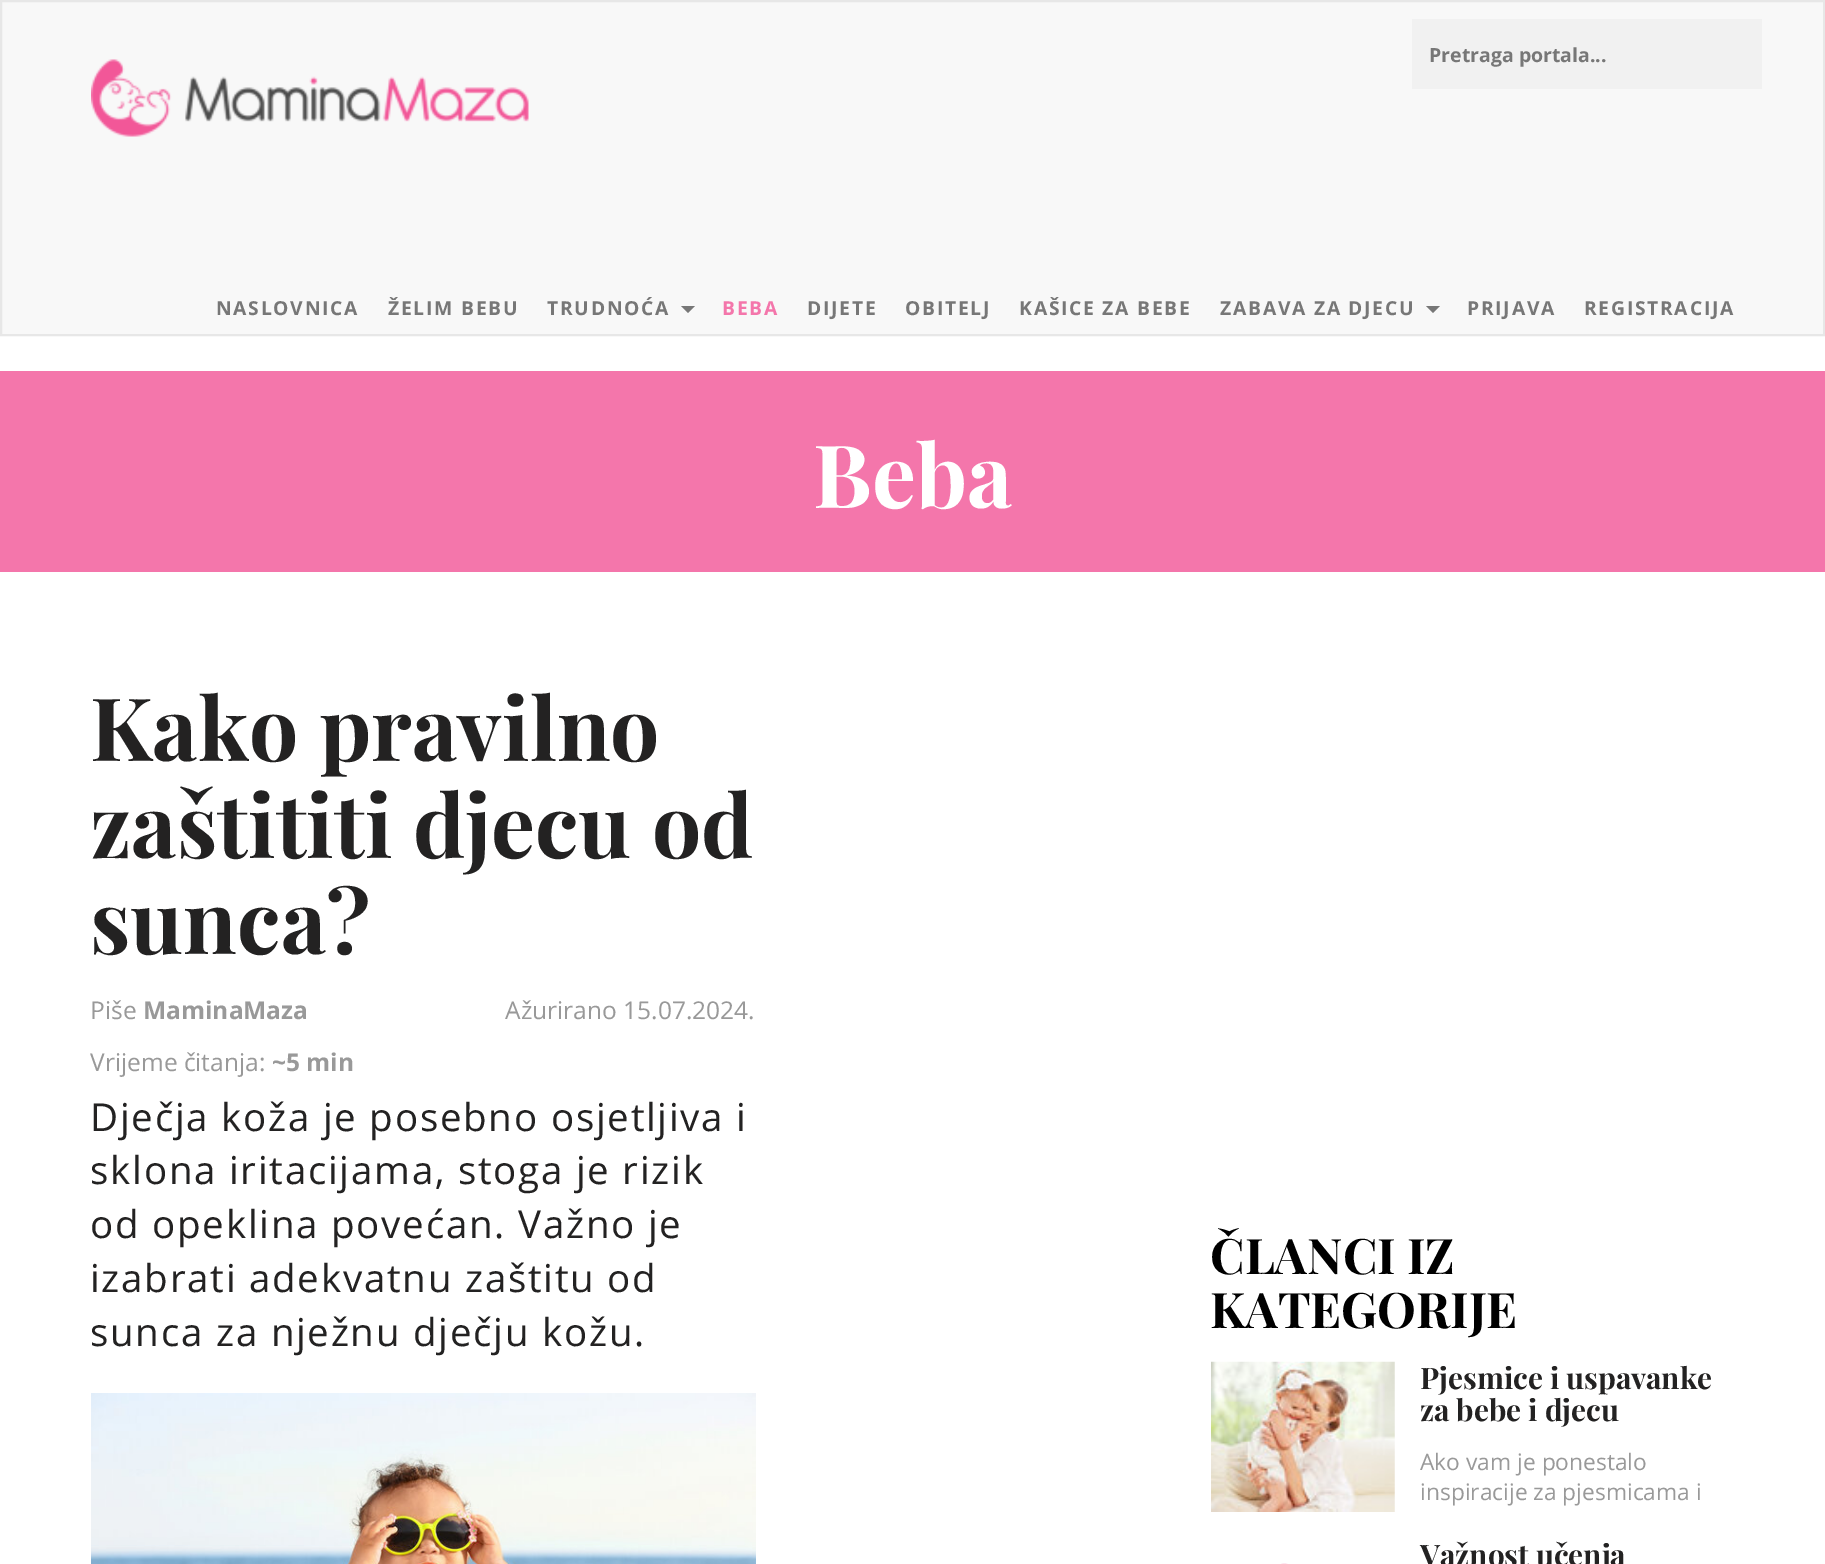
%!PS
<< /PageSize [1825 1564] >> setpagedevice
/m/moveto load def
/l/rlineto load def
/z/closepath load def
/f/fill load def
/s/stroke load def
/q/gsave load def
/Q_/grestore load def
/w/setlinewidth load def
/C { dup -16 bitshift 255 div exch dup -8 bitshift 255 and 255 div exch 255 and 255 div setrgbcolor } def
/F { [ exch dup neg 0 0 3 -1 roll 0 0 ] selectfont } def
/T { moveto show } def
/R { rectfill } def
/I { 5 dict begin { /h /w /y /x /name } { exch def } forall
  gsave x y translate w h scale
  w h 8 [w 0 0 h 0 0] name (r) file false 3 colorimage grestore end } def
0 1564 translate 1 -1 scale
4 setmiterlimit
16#FFFFFF C
0 0 1825 1564 R
16#F8F8F8 C
1 1 m 1823 0 l 0 334 l -1823 0 l z q f Q_
16#E7E7E7 C
2 w
s
16#F1F1F1 C
1412 19 350 70 R
/OpenSans-Bold 19.5 F
16#777777 C
(Pretraga portala...) 1429 62 T
(1.rgb) 91 59 438 78 I
/OpenSans-Bold 19.25 F
216 315 m 1.75 0 (NASLOVNICA) ashow
388 315 m 1.75 0 (ŽELIM BEBU) ashow
547 315 m 1.75 0 (TRUDNOĆA) ashow
681 306 m 14 0 l -7 7 l z f
16#F476AB C
722 315 m 1.75 0 (BEBA) ashow
16#777777 C
807 315 m 1.75 0 (DIJETE) ashow
905 315 m 1.75 0 (OBITELJ) ashow
1019 315 m 1.75 0 (KAŠICE ZA BEBE) ashow
1220 315 m 1.75 0 (ZABAVA ZA DJECU) ashow
1426 306 m 14 0 l -7 7 l z f
1467 315 m 1.75 0 (PRIJAVA) ashow
1584 315 m 1.75 0 (REGISTRACIJA) ashow
16#F476AB C
0 371 1825 201 R
/PlayfairDisplay-Bold 87.5 F
16#FFFFFF C
(Beba) 813 508 T
16#232222 C
(Kako pravilno) 90 761 T
(zaštititi djecu od) 90 858 T
(sunca?) 90 954 T
/OpenSans-Regular 24.5 F
16#999999 C
(Piše) 90 1019 T
/OpenSans-Bold 24.5 F
(MaminaMaza) 143 1019 T
/OpenSans-Regular 24.5 F
(Ažurirano 15.07.2024.) 505 1019 T
(Vrijeme čitanja:) 90 1071 T
/OpenSans-Bold 24.5 F
(~5 min) 272 1071 T
/OpenSans-Regular 38.5 F
16#232222 C
90 1131 m 1.75 0 (Dječja koža je posebno osjetljiva i) ashow
90 1184 m 1.75 0 (sklona iritacijama, stoga je rizik) ashow
90 1238 m 1.75 0 (od opeklina povećan. Važno je) ashow
90 1292 m 1.75 0 (izabrati adekvatnu zaštitu od) ashow
90 1346 m 1.75 0 (sunca za nježnu dječju kožu.) ashow
(2.rgb) 91 1393 665 171 I
/PlayfairDisplay-Bold 49 F
16#000000 C
(ČLANCI IZ) 1210 1274 T
(KATEGORIJE) 1210 1328 T
(3.rgb) 1211 1361 184 151 I
/PlayfairDisplay-Bold 29.75 F
16#232222 C
(Pjesmice i uspavanke) 1420 1389 T
(za bebe i djecu) 1420 1421 T
/OpenSans-Regular 22.75 F
16#999999 C
(Ako vam je ponestalo) 1420 1470 T
(inspiracije za pjesmicama i) 1420 1500 T
(4.rgb) 1281 1563 7 1 I
/PlayfairDisplay-Bold 29.75 F
16#232222 C
(Važnost učenja) 1420 1566 T
showpage
